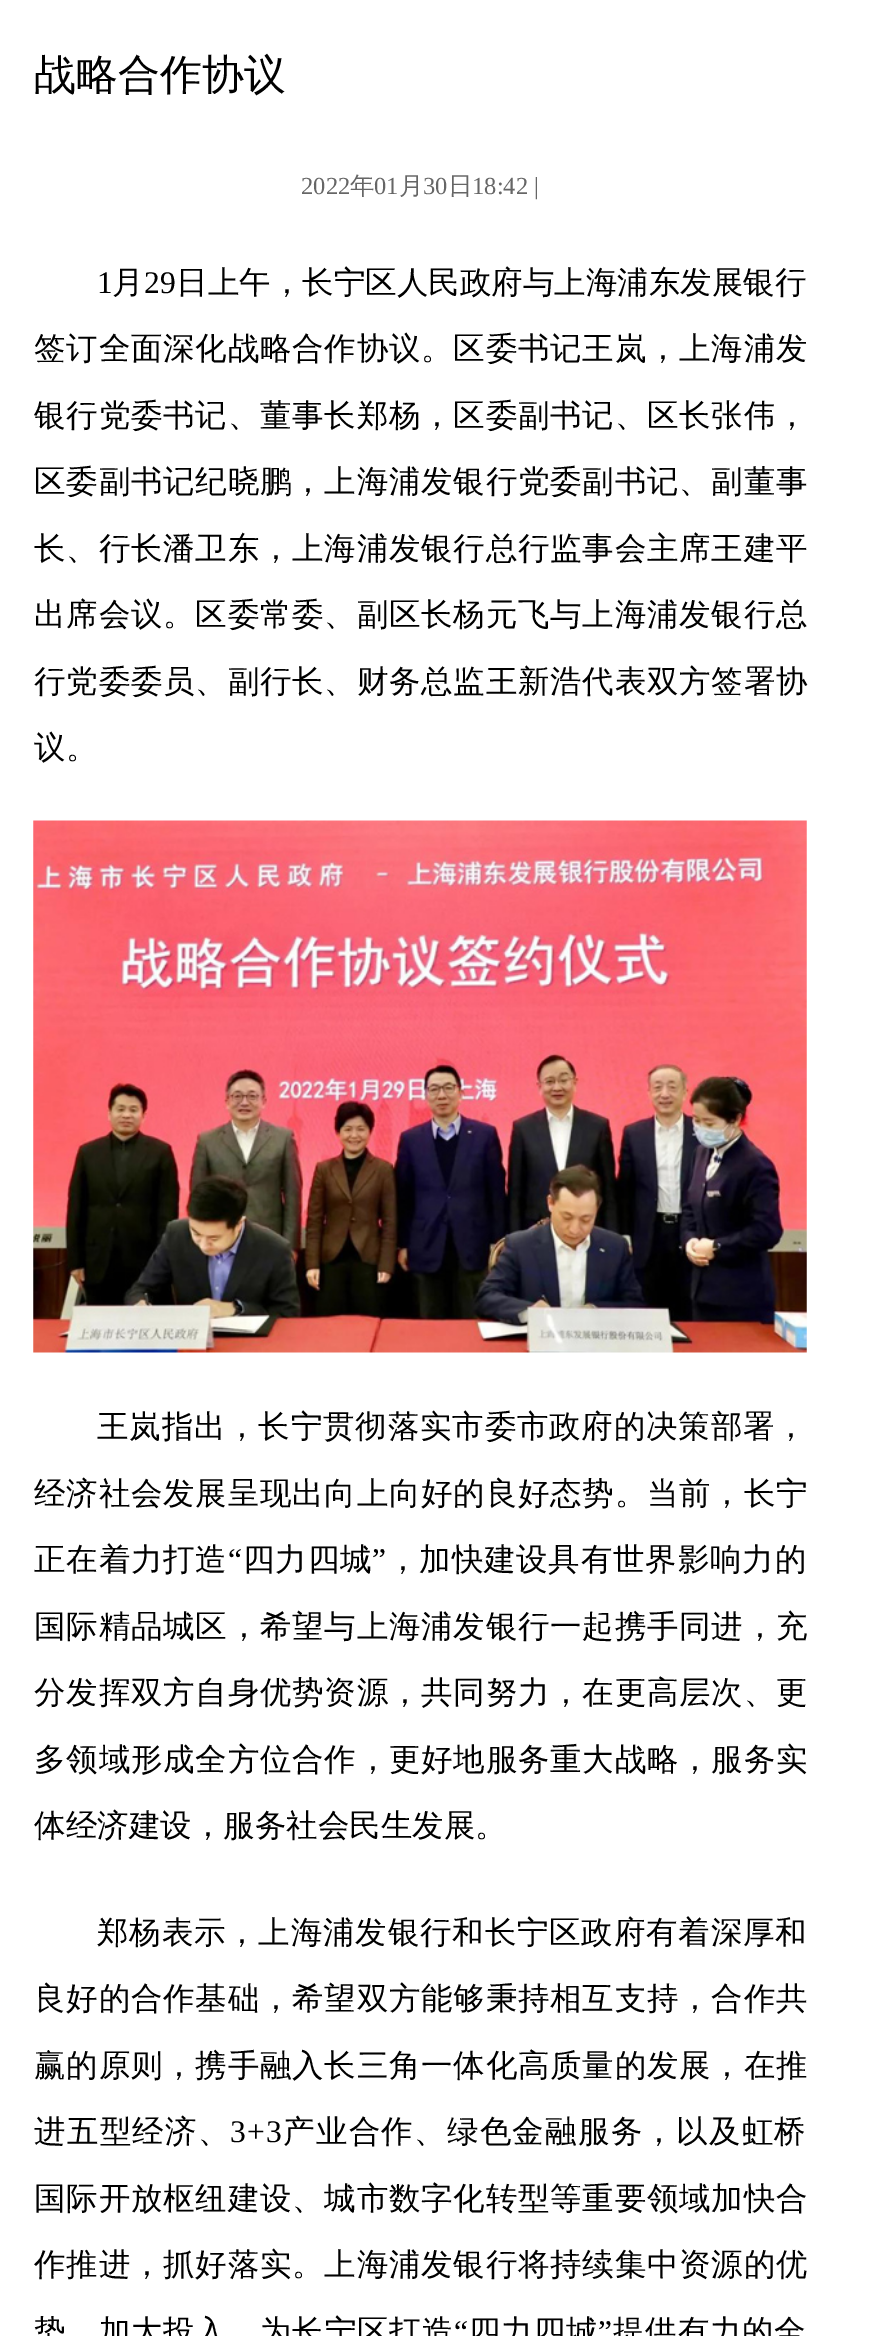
%!PS
<< /PageSize [873 2336] >> setpagedevice
/m/moveto load def
/C { dup -16 bitshift 255 div exch dup -8 bitshift 255 and 255 div exch 255 and 255 div setrgbcolor } def
/F { [ exch dup neg 0 0 3 -1 roll 0 0 ] selectfont } def
/T { moveto show } def
/R { rectfill } def
/I { 5 dict begin { /h /w /y /x /name } { exch def } forall
  gsave x y translate w h scale
  w h 8 [w 0 0 h 0 0] name (r) file false 3 colorimage grestore end } def
0 2336 translate 1 -1 scale
4 setmiterlimit
16#FFFFFF C
0 0 873 2336 R
/WenQuanYiZenHei-Medium 42 F
16#000000 C
(战略合作协议) 34 89 T
/LiberationSerif-Regular 24.5 F
16#666666 C
(2022) 301 194 T
/WenQuanYiZenHei-Medium 24.5 F
(年) 350 194 T
/LiberationSerif-Regular 24.5 F
(01) 374 194 T
/WenQuanYiZenHei-Medium 24.5 F
(月) 399 194 T
/LiberationSerif-Regular 24.5 F
(30) 423 194 T
/WenQuanYiZenHei-Medium 24.5 F
(日) 448 194 T
/LiberationSerif-Regular 24.5 F
(18:42 |) 472 194 T
/LiberationSerif-Regular 31.5 F
16#000000 C
(1) 97 293 T
/WenQuanYiZenHei-Medium 31.5 F
(月) 112 293 T
/LiberationSerif-Regular 31.5 F
(29) 144 293 T
/WenQuanYiZenHei-Medium 31.5 F
(日上午，长宁区人民政府与上海浦东发展银行) 176 293 T
34 359 m .75 0 (签订全面深化战略合作协议。区委书记王岚，上海浦发) ashow
34 426 m .75 0 (银行党委书记、董事长郑杨，区委副书记、区长张伟，) ashow
34 492 m .75 0 (区委副书记纪晓鹏，上海浦发银行党委副书记、副董事) ashow
34 559 m .75 0 (长、行长潘卫东，上海浦发银行总行监事会主席王建平) ashow
34 625 m .75 0 (出席会议。区委常委、副区长杨元飞与上海浦发银行总) ashow
34 692 m .75 0 (行党委委员、副行长、财务总监王新浩代表双方签署协) ashow
(议。) 34 758 T
(1.rgb) 33 820 774 533 I
97 1437 m .8 0 (王岚指出，长宁贯彻落实市委市政府的决策部署，) ashow
34 1504 m .75 0 (经济社会发展呈现出向上向好的良好态势。当前，长宁) ashow
34 1570 m .8 0 (正在着力打造) ashow
/LiberationSerif-Regular 31.5 F
228 1570 m .8 0 (“) ashow
/WenQuanYiZenHei-Medium 31.5 F
243 1570 m .8 0 (四力四城) ashow
/LiberationSerif-Regular 31.5 F
372 1570 m .8 0 (”) ashow
/WenQuanYiZenHei-Medium 31.5 F
387 1570 m .8 0 (，加快建设具有世界影响力的) ashow
34 1637 m .75 0 (国际精品城区，希望与上海浦发银行一起携手同进，充) ashow
34 1703 m .75 0 (分发挥双方自身优势资源，共同努力，在更高层次、更) ashow
34 1770 m .75 0 (多领域形成全方位合作，更好地服务重大战略，服务实) ashow
(体经济建设，服务社会民生发展。) 34 1836 T
97 1943 m .8 0 (郑杨表示，上海浦发银行和长宁区政府有着深厚和) ashow
34 2009 m .75 0 (良好的合作基础，希望双方能够秉持相互支持，合作共) ashow
34 2076 m .75 0 (赢的原则，携手融入长三角一体化高质量的发展，在推) ashow
34 2142 m 1.25 0 (进五型经济、) ashow
/LiberationSerif-Regular 31.5 F
230 2142 m 1.25 0 (3+3) ashow
/WenQuanYiZenHei-Medium 31.5 F
283 2142 m 1.25 0 (产业合作、绿色金融服务，以及虹桥) ashow
34 2209 m .75 0 (国际开放枢纽建设、城市数字化转型等重要领域加快合) ashow
34 2275 m .75 0 (作推进，抓好落实。上海浦发银行将持续集中资源的优) ashow
34 2342 m .8 0 (势，加大投入，为长宁区打造) ashow
/LiberationSerif-Regular 31.5 F
454 2342 m .8 0 (“) ashow
/WenQuanYiZenHei-Medium 31.5 F
469 2342 m .8 0 (四力四城) ashow
/LiberationSerif-Regular 31.5 F
598 2342 m .8 0 (”) ashow
/WenQuanYiZenHei-Medium 31.5 F
613 2342 m .8 0 (提供有力的全) ashow
showpage
